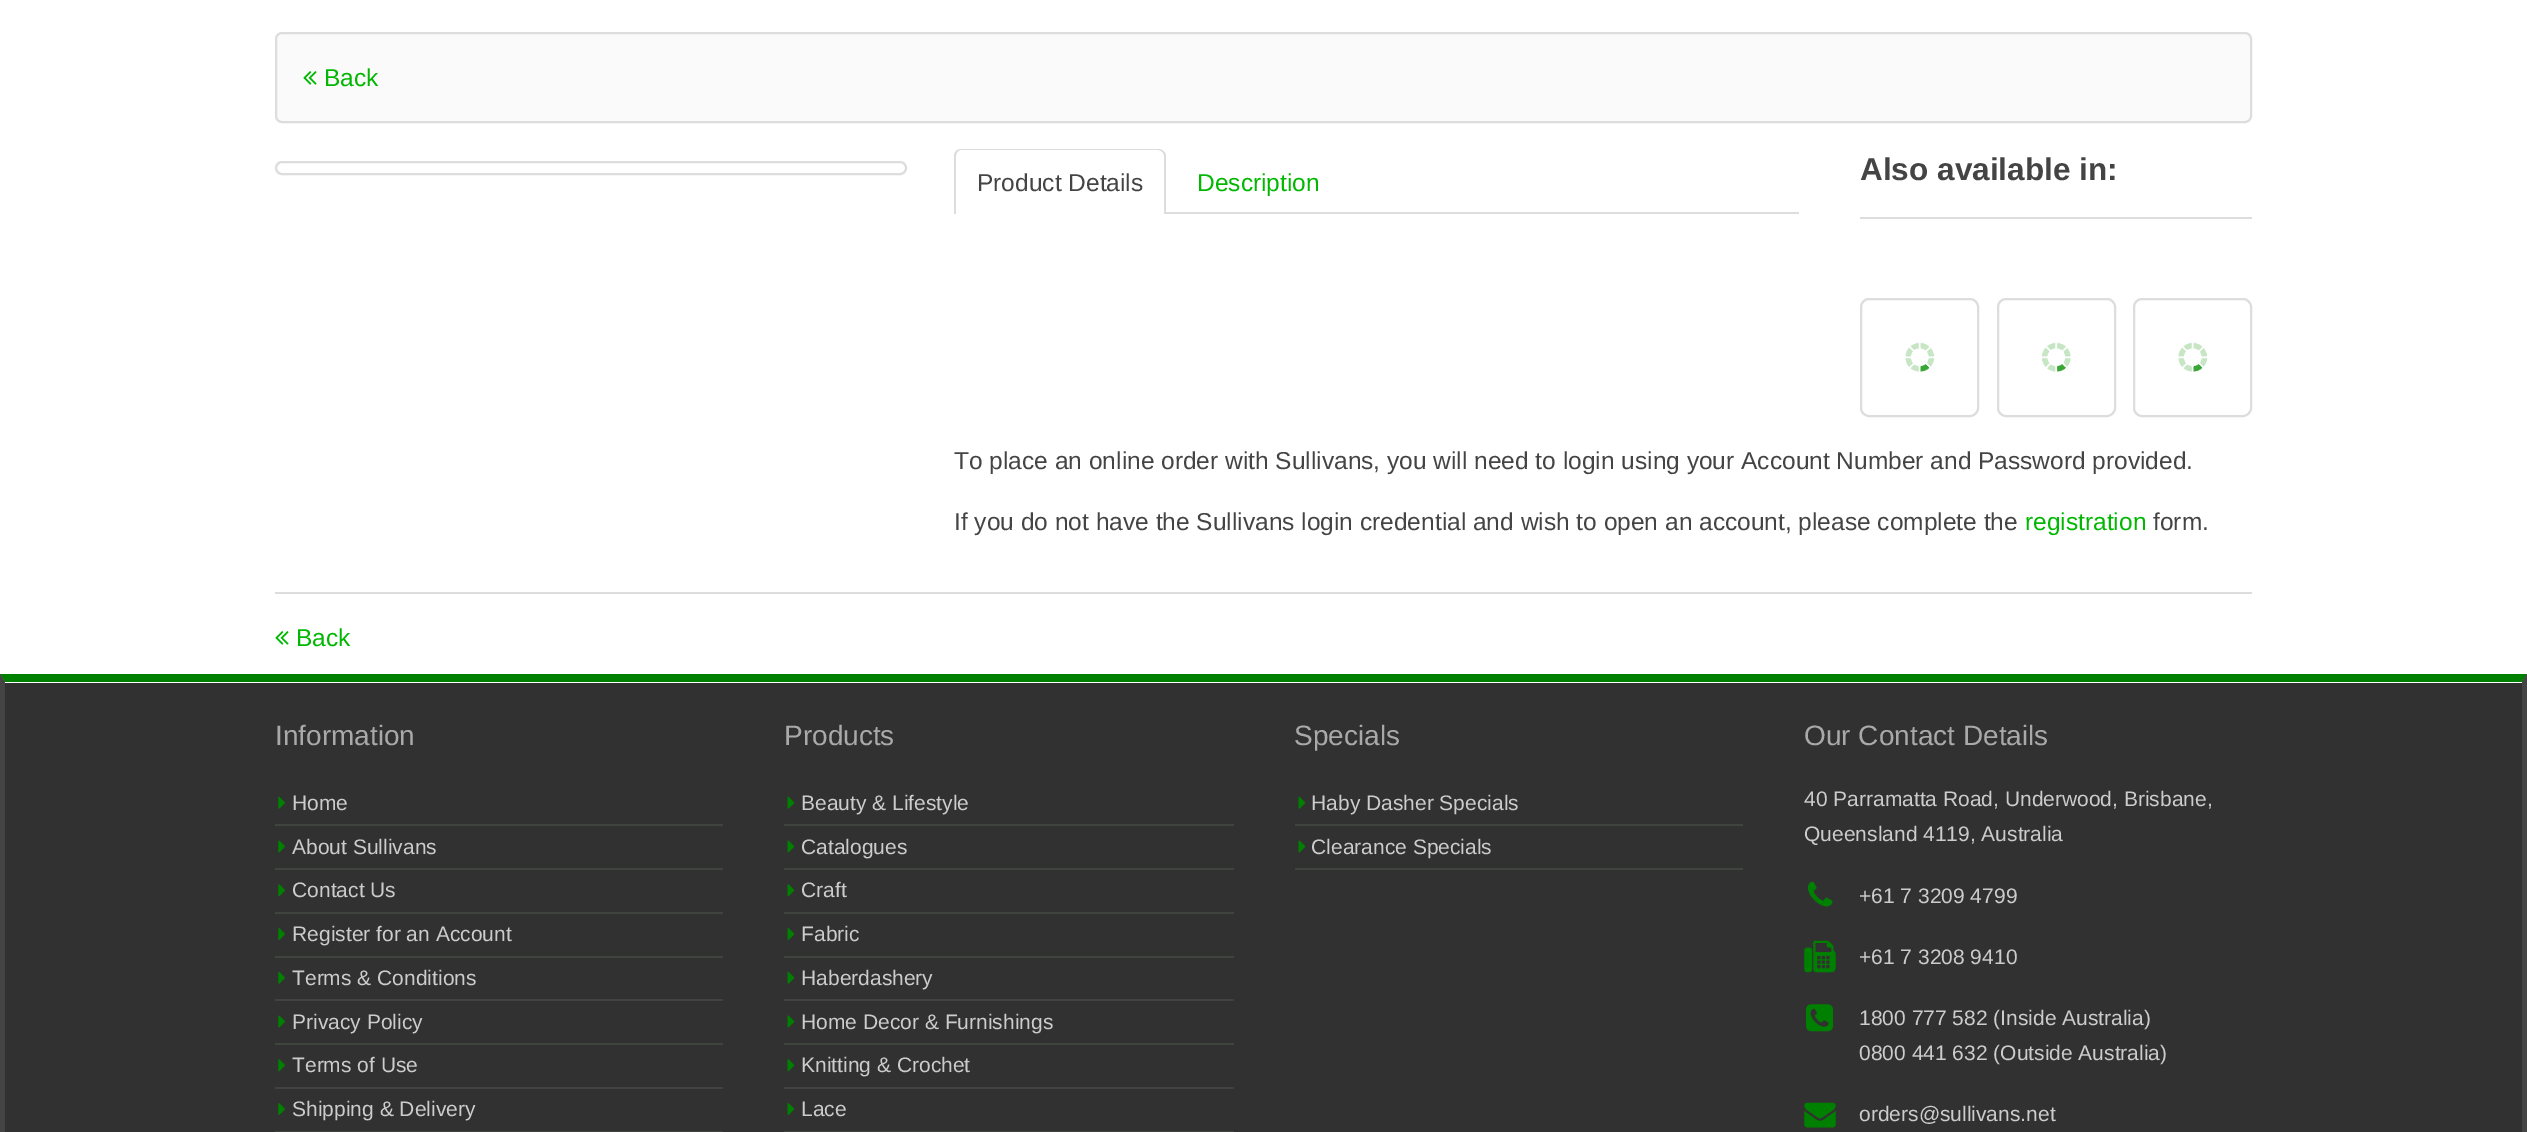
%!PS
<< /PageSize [2527 1132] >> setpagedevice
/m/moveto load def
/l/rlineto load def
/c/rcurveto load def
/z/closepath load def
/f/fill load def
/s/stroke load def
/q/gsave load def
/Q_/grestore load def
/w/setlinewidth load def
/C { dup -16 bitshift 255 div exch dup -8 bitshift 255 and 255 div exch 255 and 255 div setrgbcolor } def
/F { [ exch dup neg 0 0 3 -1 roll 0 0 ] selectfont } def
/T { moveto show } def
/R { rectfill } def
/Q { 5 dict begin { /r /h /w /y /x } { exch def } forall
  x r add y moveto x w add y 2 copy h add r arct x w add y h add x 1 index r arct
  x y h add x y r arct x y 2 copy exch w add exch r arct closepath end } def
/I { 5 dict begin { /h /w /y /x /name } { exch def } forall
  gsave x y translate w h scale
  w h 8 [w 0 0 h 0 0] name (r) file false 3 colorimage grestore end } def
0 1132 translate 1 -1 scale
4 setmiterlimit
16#FFFFFF C
0 0 2527 1132 R
16#FAFAFA C
276 33 1975 89 6 Q q f Q_
16#DDDDDD C
2 w
s
(1.rgb) 303 71 14 14 I
/LiberationSans-Regular 24.5 F
16#02B702 C
(Back) 324 86 T
16#DDDDDD C
276 162 630 12 6 Q s
/LiberationSans-Bold 31.5 F
16#444444 C
(Also available in:) 1860 180 T
16#DDDDDD C
1860 217 392 2 R
1861 299 117 117 8 Q s
(2.rgb) 1905 342 30 30 I
1998 299 117 117 8 Q s
(3.rgb) 2041 342 30 30 I
2134 299 117 117 8 Q s
(2.rgb) 2178 342 30 30 I
1166 212 633 2 R
961 149 m 197 0 l 4 0 8 3 8 7 c 0 58 l -212 0 l 0 -58 l 0 -4 3 -7 7 -7 c z 961 150 m 197 0 l 3 0 6 3 6 6 c 0 58 l -208 0 l 0 -58 l 0 -3 2 -6 5 -6 c z eofill
/LiberationSans-Regular 24.5 F
16#444444 C
(Product Details) 977 191 T
16#02B702 C
(Description) 1197 191 T
16#444444 C
(To place an online order with Sullivans, you will need to login using your Account Number and Password provided.) 954 469 T
(If you do not have the Sullivans login credential and wish to open an account, please complete the) 954 530 T
16#02B702 C
(registration) 2025 530 T
16#444444 C
(form.) 2153 530 T
16#DDDDDD C
275 592 1977 2 R
(4.rgb) 275 631 14 14 I
16#02B702 C
(Back) 296 646 T
16#313131 C
5 683 2517 449 R
16#008000 C
0 674 m 2527 0 l -5 8 l -2517 0 l z f
16#444444 C
2527 674 m 0 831 l -5 -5 l 0 -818 l z f
0 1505 m 0 -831 l 5 8 l 0 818 l z f
/LiberationSans-Regular 28 F
16#A9A9A9 C
(Information) 275 745 T
16#3F443F C
275 824 448 2 R
(5.rgb) 278 796 7 13 I
/LiberationSans-Regular 21 F
16#CCCCCC C
(Home) 292 810 T
16#3F443F C
275 868 448 2 R
(6.rgb) 278 840 7 13 I
16#CCCCCC C
(About Sullivans) 292 854 T
16#3F443F C
275 912 448 2 R
(7.rgb) 278 884 7 13 I
16#CCCCCC C
(Contact Us) 292 897 T
16#3F443F C
275 956 448 2 R
(8.rgb) 278 928 7 12 I
16#CCCCCC C
(Register for an Account) 292 941 T
16#3F443F C
275 999 448 2 R
(5.rgb) 278 971 7 13 I
16#CCCCCC C
(Terms & Conditions) 292 985 T
16#3F443F C
275 1043 448 2 R
(6.rgb) 278 1015 7 13 I
16#CCCCCC C
(Privacy Policy) 292 1029 T
16#3F443F C
275 1087 448 2 R
(7.rgb) 278 1059 7 13 I
16#CCCCCC C
(Terms of Use) 292 1072 T
16#3F443F C
275 1131 448 1 R
(8.rgb) 278 1103 7 12 I
16#CCCCCC C
(Shipping & Delivery) 292 1116 T
/LiberationSans-Regular 28 F
16#A9A9A9 C
(Products) 784 745 T
16#3F443F C
784 824 450 2 R
(9.rgb) 787 796 8 13 I
/LiberationSans-Regular 21 F
16#CCCCCC C
(Beauty & Lifestyle) 801 810 T
16#3F443F C
784 868 450 2 R
(10.rgb) 787 840 8 13 I
16#CCCCCC C
(Catalogues) 801 854 T
16#3F443F C
784 912 450 2 R
(11.rgb) 787 884 8 13 I
16#CCCCCC C
(Craft) 801 897 T
16#3F443F C
784 956 450 2 R
(12.rgb) 787 928 8 12 I
16#CCCCCC C
(Fabric) 801 941 T
16#3F443F C
784 999 450 2 R
(9.rgb) 787 971 8 13 I
16#CCCCCC C
(Haberdashery) 801 985 T
16#3F443F C
784 1043 450 2 R
(10.rgb) 787 1015 8 13 I
16#CCCCCC C
(Home Decor & Furnishings) 801 1029 T
16#3F443F C
784 1087 450 2 R
(11.rgb) 787 1059 8 13 I
16#CCCCCC C
(Knitting & Crochet) 801 1072 T
16#3F443F C
784 1131 450 1 R
(12.rgb) 787 1103 8 12 I
16#CCCCCC C
(Lace) 801 1116 T
/LiberationSans-Regular 28 F
16#A9A9A9 C
(Specials) 1294 745 T
16#3F443F C
1295 824 448 2 R
(9.rgb) 1298 796 8 13 I
/LiberationSans-Regular 21 F
16#CCCCCC C
(Haby Dasher Specials) 1311 810 T
16#3F443F C
1295 868 448 2 R
(10.rgb) 1298 840 8 13 I
16#CCCCCC C
(Clearance Specials) 1311 854 T
/LiberationSans-Regular 28 F
16#A9A9A9 C
(Our Contact Details) 1804 745 T
/LiberationSans-Regular 21 F
16#CCCCCC C
(40 Parramatta Road, Underwood, Brisbane,) 1804 806 T
(Queensland 4119, Australia) 1804 841 T
(13.rgb) 1807 881 26 26 I
(+61 7 3209 4799) 1859 903 T
(14.rgb) 1804 940 32 33 I
(+61 7 3208 9410) 1859 964 T
(15.rgb) 1806 1004 27 28 I
(1800 777 582 \(Inside Australia\)) 1859 1025 T
(0800 441 632 \(Outside Australia\)) 1859 1060 T
(16.rgb) 1804 1102 32 26 I
(orders@sullivans.net) 1859 1121 T
showpage
